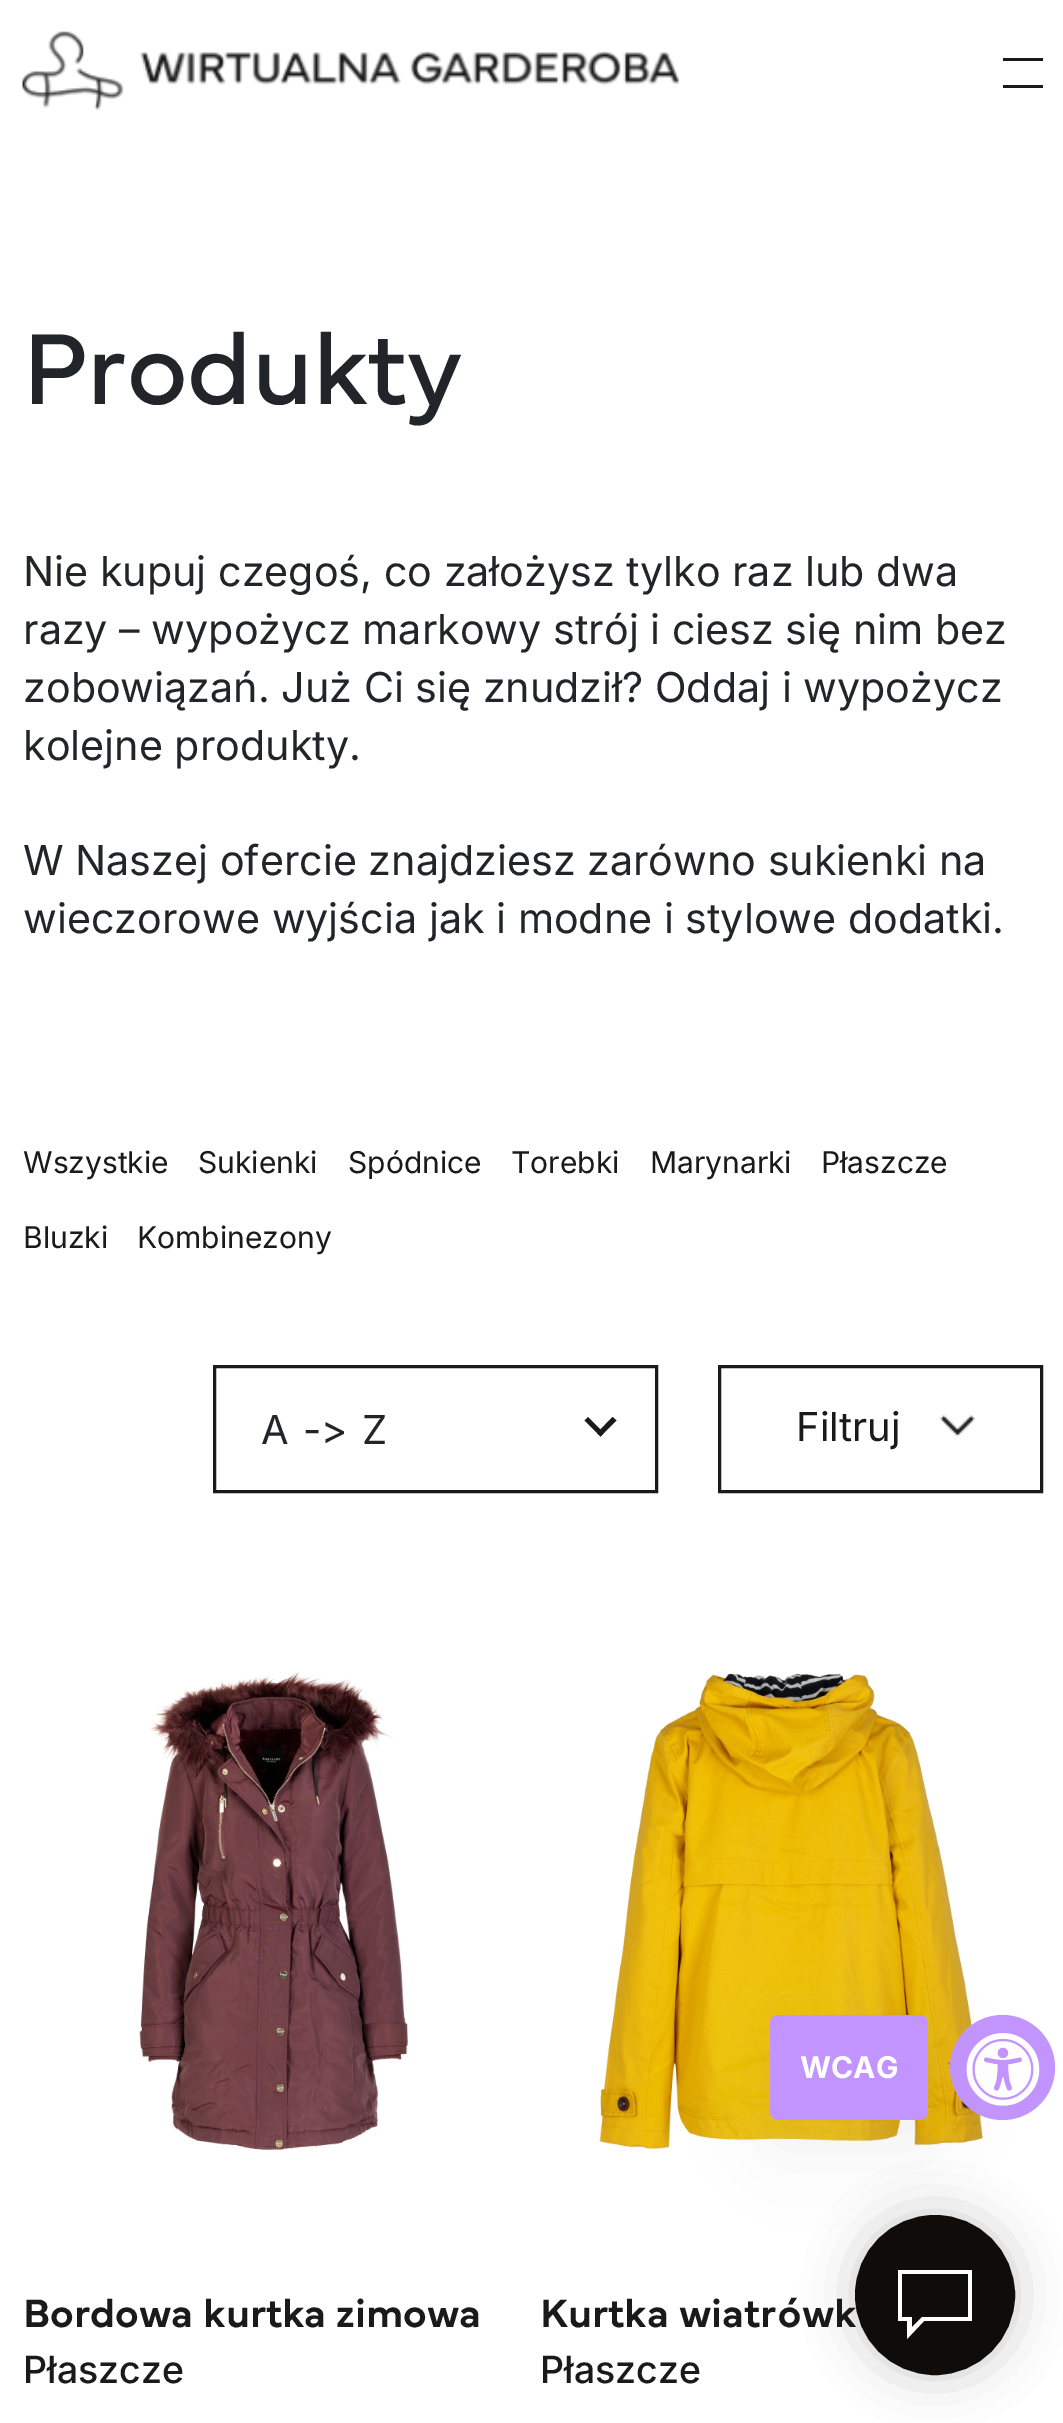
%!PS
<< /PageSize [1063 2423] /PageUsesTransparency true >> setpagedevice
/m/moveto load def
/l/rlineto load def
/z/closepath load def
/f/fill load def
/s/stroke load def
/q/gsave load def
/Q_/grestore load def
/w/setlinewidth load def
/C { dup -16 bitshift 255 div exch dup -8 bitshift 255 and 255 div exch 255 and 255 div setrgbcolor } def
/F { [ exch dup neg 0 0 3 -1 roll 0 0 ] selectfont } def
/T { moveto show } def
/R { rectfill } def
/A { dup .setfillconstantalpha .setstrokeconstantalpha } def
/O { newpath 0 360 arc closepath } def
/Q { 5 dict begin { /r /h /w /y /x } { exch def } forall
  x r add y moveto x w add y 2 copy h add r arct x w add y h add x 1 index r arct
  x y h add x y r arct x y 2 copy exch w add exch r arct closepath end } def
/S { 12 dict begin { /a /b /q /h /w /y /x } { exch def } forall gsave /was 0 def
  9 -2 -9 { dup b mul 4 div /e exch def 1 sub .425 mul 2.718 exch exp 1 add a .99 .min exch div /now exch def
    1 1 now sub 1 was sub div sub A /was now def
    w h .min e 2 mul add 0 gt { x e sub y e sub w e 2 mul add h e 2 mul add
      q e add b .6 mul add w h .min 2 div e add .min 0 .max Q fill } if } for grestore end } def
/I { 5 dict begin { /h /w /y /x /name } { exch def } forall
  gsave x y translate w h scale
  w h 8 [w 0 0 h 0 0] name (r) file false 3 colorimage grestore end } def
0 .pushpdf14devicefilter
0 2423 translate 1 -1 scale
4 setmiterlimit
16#FFFFFF C
0 0 1063 2423 R
(1.rgb) 22 31 658 79 I
16#1A1A1A C
1003 58 40 3 R
1003 85 40 3 R
/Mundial-Regular 105 F
16#212529 C
(Produkty) 23 404 T
/Inter-Regular 41.25 F
(Nie kupuj czegoś, co założysz tylko raz lub dwa) 23 586 T
(razy – wypożycz markowy strój i ciesz się nim bez) 23 644 T
(zobowiązań. Już Ci się znudził? Oddaj i wypożycz) 23 702 T
(kolejne produkty.) 23 760 T
(W Naszej ofercie znajdziesz zarówno sukienki na) 23 875 T
(wieczorowe wyjścia jak i modne i stylowe dodatki.) 23 933 T
/Inter-Regular 30 F
16#1A1A1A C
(Wszystkie) 23 1173 T
(Sukienki) 198 1173 T
(Spódnice) 348 1173 T
(Torebki) 511 1173 T
(Marynarki) 650 1173 T
(Płaszcze) 821 1173 T
(Bluzki) 23 1248 T
(Kombinezony) 137 1248 T
3 w
214.5 1366.5 442 125 rectstroke
/Inter-Regular 40 F
16#212529 C
261 1444 m 3 0 32 (A -> Z) widthshow
16#1A1A1A C
612.5 1417 m 4 3.5 l -16 16 l -3.5 -3.5 l z f
588 1417 m 16 16 l -3.5 3.5 l -16 -16 l z f
719.5 1366.5 322 125 rectstroke
(Filtruj) 796 1441 T
(2.rgb) 940 1415 35 22 I
(3.rgb) 139 1671 269 479 I
/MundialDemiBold-SemiBold 41.25 F
(Bordowa kurtka zimowa) 23 2327 T
/Inter-Medium 37.5 F
(Płaszcze) 23 2383 T
(4.rgb) 599 1673 384 476 I
/MundialDemiBold-SemiBold 41.25 F
(Kurtka wiatrówk) 540 2327 T
/Inter-Medium 37.5 F
(Płaszcze) 540 2383 T
16#C294FF C
1002.5 2067.5 52.5 O f
(5.rgb) 966 2033 74 73 I
16#000000 C
855 2215 160 160 80 25 .2 S
16#100C09 C
935 2295 77.5 O q f Q_
5 w
s
16#666666 C
770 2040 158 105 8 37.5 .1 S
16#C294FF C
770 2015 158 105 8 Q f
/Inter-Bold 30 F
16#FFFFFF C
(WCAG) 800 2078 T
898 2270 m 74 0 l 0 51 l -48 0 l -17 18 l 0 -18 l -9 0 l z 968 2317 m 0 -43 l -66 0 l 0 43 l 10 0 l 0 10 l 10 -10 l z f
.poppdf14devicefilter showpage
